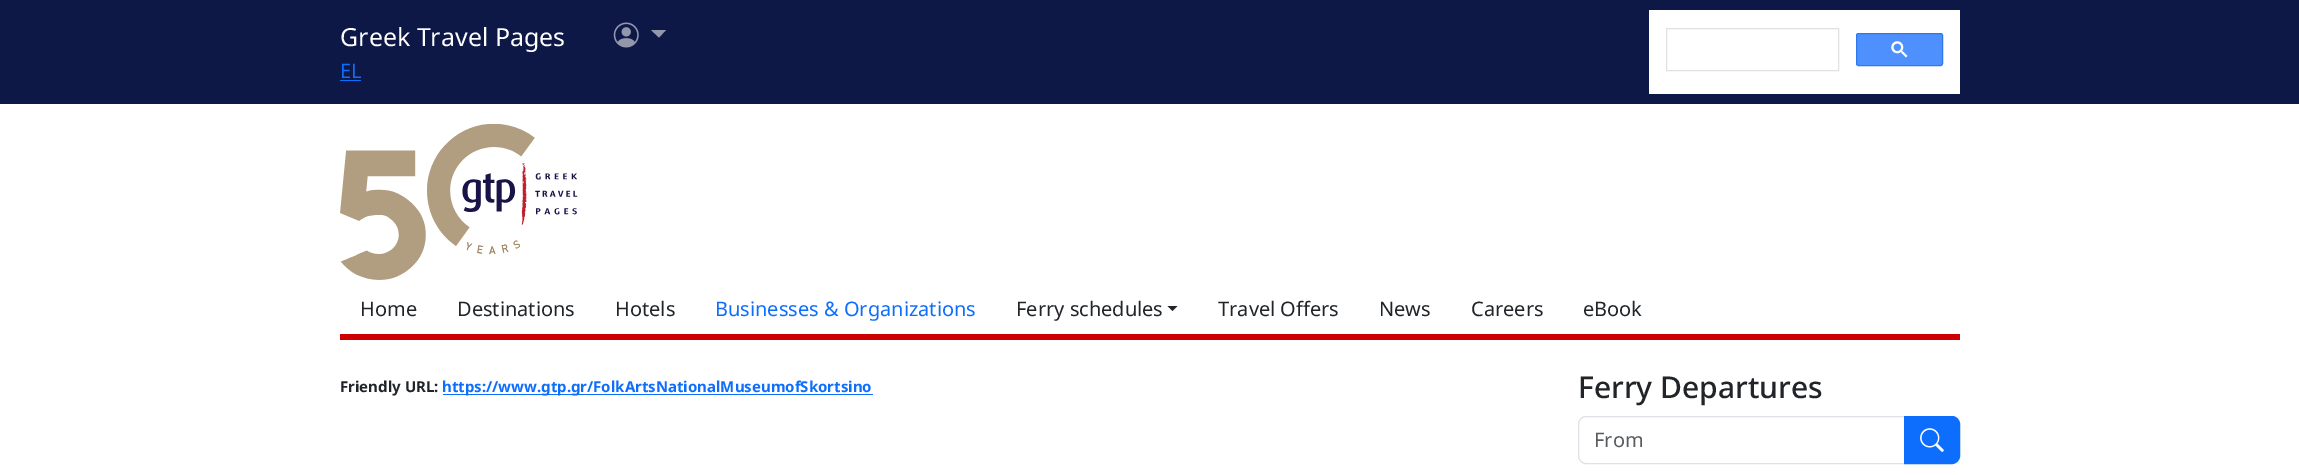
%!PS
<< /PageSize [2299 475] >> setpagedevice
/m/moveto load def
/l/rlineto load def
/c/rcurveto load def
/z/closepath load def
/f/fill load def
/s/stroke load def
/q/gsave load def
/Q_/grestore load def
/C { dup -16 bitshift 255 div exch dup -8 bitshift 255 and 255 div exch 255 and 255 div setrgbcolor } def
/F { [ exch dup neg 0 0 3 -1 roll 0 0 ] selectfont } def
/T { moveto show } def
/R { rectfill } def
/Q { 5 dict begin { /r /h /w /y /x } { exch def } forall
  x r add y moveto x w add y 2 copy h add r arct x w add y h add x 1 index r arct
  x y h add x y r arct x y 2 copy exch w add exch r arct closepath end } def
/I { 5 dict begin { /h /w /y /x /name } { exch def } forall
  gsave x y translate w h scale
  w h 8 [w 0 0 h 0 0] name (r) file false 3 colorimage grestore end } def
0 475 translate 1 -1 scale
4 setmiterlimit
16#FFFFFF C
0 0 2299 475 R
16#0D1846 C
0 0 2299 104 R
/NotoSans-Regular 25 F
16#FFFFFF C
(Greek Travel Pages) 340 46 T
/NotoSans-Regular 20 F
16#0D6EFD C
(EL) 340 78 T
340 80 21 1 R
(1.rgb) 613 22 26 26 I
16#9297AC C
651 30 m 15 0 l -7 7.5 l z f
16#FFFFFF C
1649 10 311 84 R
16#DFE1E5 C
1666.5 28.5 172 42 rectstroke
16#4D90FE C
1856.5 33.5 86 32 2 Q q f Q_
16#3079ED C
s
(2.rgb) 1891 41 17 17 I
(3.rgb) 340 124 238 156 I
16#CC0000 C
340 334 1620 6 R
16#212529 C
(Home) 360 316 T
(Destinations) 457 316 T
(Hotels) 615 316 T
16#0D6EFD C
(Businesses & Organizations) 715 316 T
16#212529 C
(Ferry schedules) 1016 316 T
1167.5 306 m 10 0 l -5 5 l z f
(Travel Offers) 1218 316 T
(News) 1379 316 T
(Careers) 1471 316 T
(eBook) 1583 316 T
/NotoSans-Bold 15 F
(Friendly URL:) 340 392 T
16#0D6EFD C
443 394 430 1 R
(https://www.gtp.gr/FolkArtsNationalMuseumofSkortsino) 442 392 T
/NotoSans-Medium 30 F
16#212529 C
(Ferry Departures) 1578 398 T
16#DEE2E6 C
1586 416.5 m 318.5 0 l 0 47 l -318.5 0 l -4 0 -7.5 -3.5 -7.5 -7.5 c 0 -32 l 0 -4 3.5 -7.5 7.5 -7.5 c z s
/NotoSans-Regular 20 F
16#595C5F C
(From) 1594 447 T
16#0D6EFD C
1904.5 416.5 m 47.5 0 l 4 0 7.5 3.5 7.5 7.5 c 0 32 l 0 4 -3.5 7.5 -7.5 7.5 c -47.5 0 l z q f Q_
s
(4.rgb) 1920 428 24 24 I
showpage
